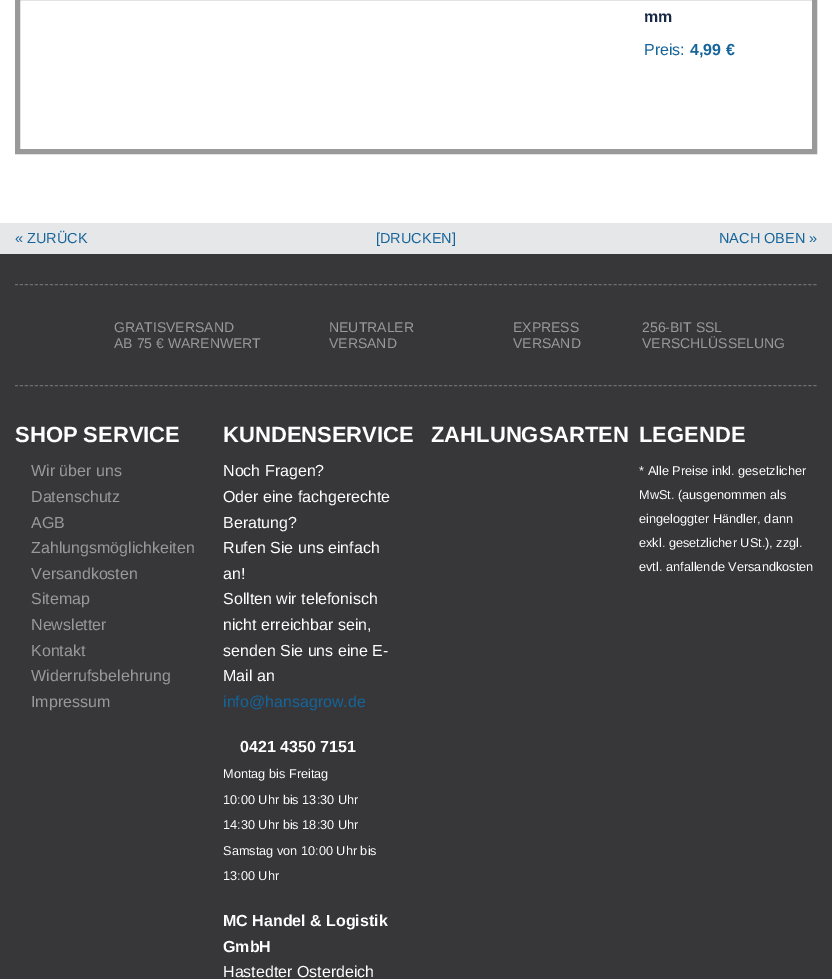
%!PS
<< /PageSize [832 979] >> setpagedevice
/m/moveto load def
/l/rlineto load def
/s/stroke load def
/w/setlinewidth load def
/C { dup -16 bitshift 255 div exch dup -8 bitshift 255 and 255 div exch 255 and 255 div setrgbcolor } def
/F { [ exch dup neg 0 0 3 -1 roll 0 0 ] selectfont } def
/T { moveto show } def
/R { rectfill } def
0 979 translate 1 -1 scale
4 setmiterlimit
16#FFFFFF C
0 0 832 979 R
16#999999 C
5 w
17.5 -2.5 797 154 rectstroke
/LiberationSans-Bold 16 F
16#172944 C
(mm) 644 22 T
/LiberationSans-Regular 16 F
16#15649A C
(Preis:) 644 55 T
/LiberationSans-Bold 16 F
(4,99 €) 690 55 T
16#E6E7E8 C
0 223 832 31 R
/LiberationSans-Regular 14.5 F
16#15649A C
(« ZURÜCK) 15 243 T
([DRUCKEN]) 376 243 T
(NACH OBEN ») 719 243 T
16#373739 C
0 254 832 725 R
16#6D6E71 C
1 w
[3 1.99] 0 setdash
15 284.5 m 802 0 l s
15 385.5 m 802 0 l s
/LiberationSans-Regular 14 F
16#999999 C
(GRATISVERSAND) 114 332 T
(AB 75 € WARENWERT) 114 348 T
(NEUTRALER) 329 332 T
(VERSAND) 329 348 T
(EXPRESS) 513 332 T
(VERSAND) 513 348 T
(256-BIT SSL) 642 332 T
(VERSCHLÜSSELUNG) 642 348 T
/LiberationSans-Bold 22 F
16#FFFFFF C
(SHOP SERVICE) 15 442 T
/LiberationSans-Regular 16 F
16#999999 C
(Wir über uns) 31 476 T
(Datenschutz) 31 502 T
(AGB) 31 528 T
(Zahlungsmöglichkeiten) 31 553 T
(Versandkosten) 31 579 T
(Sitemap) 31 604 T
(Newsletter) 31 630 T
(Kontakt) 31 656 T
(Widerrufsbelehrung) 31 681 T
(Impressum) 31 707 T
/LiberationSans-Bold 22 F
16#FFFFFF C
(KUNDENSERVICE) 223 442 T
/LiberationSans-Regular 16 F
(Noch Fragen?) 223 476 T
(Oder eine fachgerechte) 223 502 T
(Beratung?) 223 528 T
(Rufen Sie uns einfach) 223 553 T
(an!) 223 579 T
(Sollten wir telefonisch) 223 604 T
(nicht erreichbar sein,) 223 630 T
(senden Sie uns eine E-) 223 656 T
(Mail an) 223 681 T
16#15649A C
(info@hansagrow.de) 223 707 T
/LiberationSans-Bold 16 F
16#FFFFFF C
(0421 4350 7151) 240 752 T
/LiberationSans-Regular 12.75 F
(Montag bis Freitag) 223 778 T
(10:00 Uhr bis 13:30 Uhr) 223 804 T
(14:30 Uhr bis 18:30 Uhr) 223 829 T
(Samstag von 10:00 Uhr bis) 223 855 T
(13:00 Uhr) 223 880 T
/LiberationSans-Bold 16 F
(MC Handel & Logistik) 223 926 T
(GmbH) 223 952 T
/LiberationSans-Regular 16 F
(Hastedter Osterdeich) 223 977 T
/LiberationSans-Bold 22 F
(ZAHLUNGSARTEN) 431 442 T
(LEGENDE) 639 442 T
/LiberationSans-Regular 12.75 F
(* Alle Preise inkl. gesetzlicher) 639 475 T
(MwSt. \(ausgenommen als) 639 499 T
(eingeloggter Händler, dann) 639 523 T
(exkl. gesetzlicher USt.\), zzgl.) 639 547 T
(evtl. anfallende Versandkosten) 639 571 T
showpage
